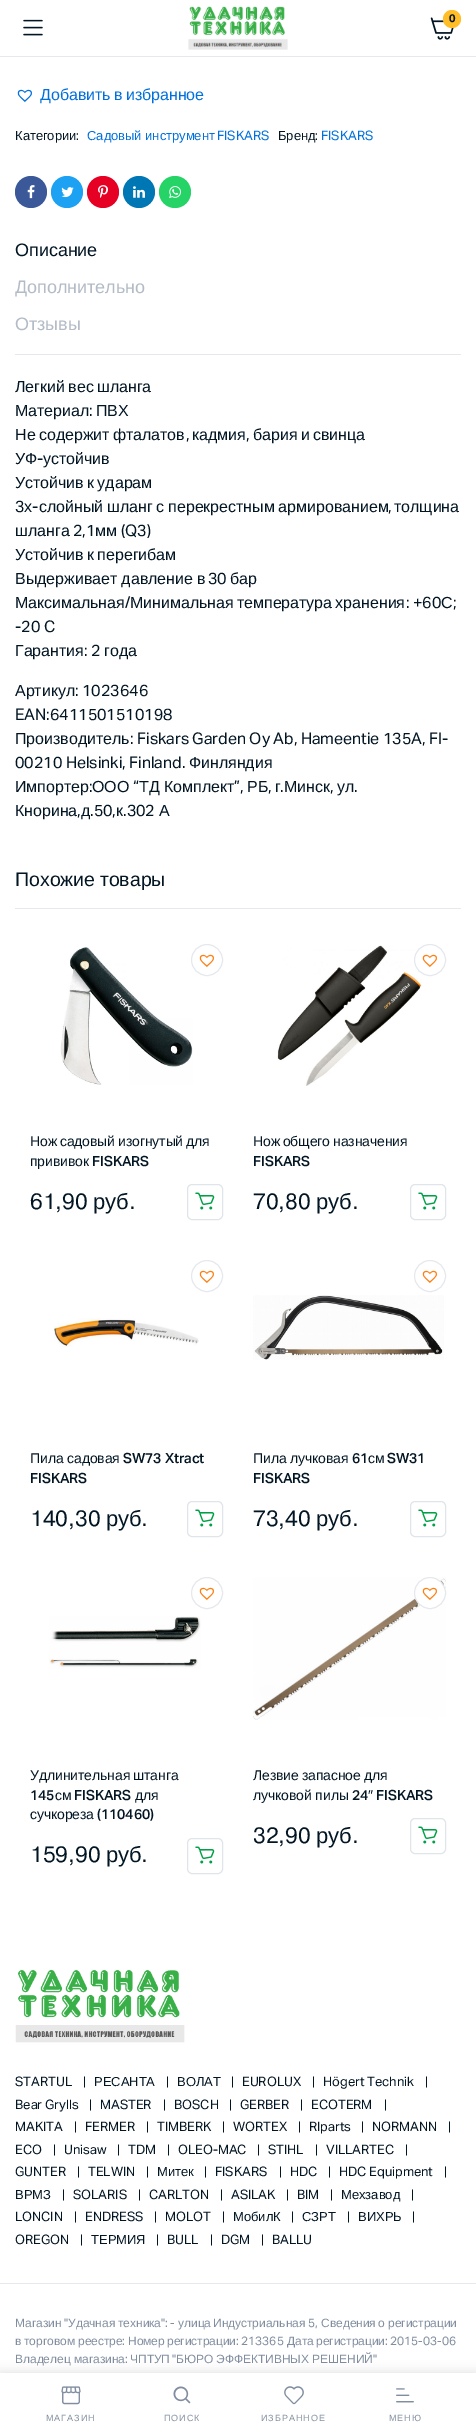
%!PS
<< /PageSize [476 2431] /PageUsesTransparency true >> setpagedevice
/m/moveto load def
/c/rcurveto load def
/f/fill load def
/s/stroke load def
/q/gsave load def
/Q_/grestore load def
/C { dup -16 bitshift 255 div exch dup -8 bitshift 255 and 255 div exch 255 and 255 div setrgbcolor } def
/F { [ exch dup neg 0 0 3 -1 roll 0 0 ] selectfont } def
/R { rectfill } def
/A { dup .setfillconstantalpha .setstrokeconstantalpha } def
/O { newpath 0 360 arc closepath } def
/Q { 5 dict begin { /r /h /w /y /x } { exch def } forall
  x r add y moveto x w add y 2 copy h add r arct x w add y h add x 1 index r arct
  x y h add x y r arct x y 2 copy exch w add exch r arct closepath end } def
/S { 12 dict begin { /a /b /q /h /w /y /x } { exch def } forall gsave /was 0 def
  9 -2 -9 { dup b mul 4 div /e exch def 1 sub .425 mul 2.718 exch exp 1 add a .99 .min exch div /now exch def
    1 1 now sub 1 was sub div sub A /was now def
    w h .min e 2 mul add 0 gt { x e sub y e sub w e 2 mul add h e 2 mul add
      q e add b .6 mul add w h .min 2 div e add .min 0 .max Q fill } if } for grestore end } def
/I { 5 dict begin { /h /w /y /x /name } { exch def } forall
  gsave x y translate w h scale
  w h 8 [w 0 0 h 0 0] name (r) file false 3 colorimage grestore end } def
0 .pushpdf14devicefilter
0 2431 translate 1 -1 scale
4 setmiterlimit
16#FFFFFF C
0 0 476 2431 R
16#E5E8EC C
0 56 476 1 R
(1.rgb) 23 19 20 17 I
(2.rgb) 188 6 100 44 I
(3.rgb) 430 17 24 23 I
16#FFBD27 C
452 19 9 O f
/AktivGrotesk-Bold 11 F
16#021523 C
449 22 m -.05 0 (0) ashow
(4.rgb) 17 89 15 13 I
/LiberationSans-Regular 16 F
16#0070DC C
40 100 m -1 0 32 -.05 0 (Добавить в избранное) awidthshow
/LiberationSans-Regular 13 F
16#021523 C
15 140 m -.05 0 (Категории) ashow
/AktivGrotesk-Regular 13 F
76 140 m -.05 0 (:) ashow
/LiberationSans-Regular 13 F
16#0070DC C
87 140 m -.05 0 (Садовый инструмент) ashow
/AktivGrotesk-Regular 13 F
217 140 m -.05 0 (FISKARS) ashow
/LiberationSans-Regular 13 F
16#021523 C
278 140 m -.05 0 (Бренд) ashow
/AktivGrotesk-Regular 13 F
315 140 m -.05 0 (:) ashow
16#0070DC C
321 140 m -.05 0 (FISKARS) ashow
16#3B5998 C
31 192 16 O f
(5.rgb) 27 185 8 14 I
16#1DA1F2 C
67 192 16 O f
(6.rgb) 61 187 13 11 I
16#E60023 C
103 192 16 O f
(7.rgb) 98 185 10 13 I
16#0077B5 C
139 192 16 O f
(8.rgb) 133 186 12 12 I
16#25D366 C
175 192 16 O f
(9.rgb) 169 186 12 13 I
16#E5E8EC C
15 354 446 1 R
/LiberationSans-Regular 18 F
16#021523 C
15 256 m -.05 0 (Описание) ashow
16#B3BBC6 C
15 293 m -.05 0 (Дополнительно) ashow
15 330 m -.05 0 (Отзывы) ashow
/LiberationSans-Regular 16 F
16#021523 C
15 392 m -1 0 32 -.05 0 (Легкий вес шланга) awidthshow
15 416 m -.05 0 (Материал) ashow
/AktivGrotesk-Regular 16 F
89 416 m -.05 0 (:) ashow
/LiberationSans-Regular 16 F
96 416 m -.05 0 (ПВХ) ashow
15 440 m -1 0 32 -.05 0 (Не содержит фталатов) awidthshow
/AktivGrotesk-Regular 16 F
186 440 m -.05 0 (,) ashow
/LiberationSans-Regular 16 F
192 440 m -.05 0 (кадмия) ashow
/AktivGrotesk-Regular 16 F
246 440 m -.05 0 (,) ashow
/LiberationSans-Regular 16 F
253 440 m -1 0 32 -.05 0 (бария и свинца) awidthshow
15 464 m -.05 0 (УФ) ashow
/AktivGrotesk-Regular 16 F
37 464 m -.05 0 (-) ashow
/LiberationSans-Regular 16 F
43 464 m -.05 0 (устойчив) ashow
15 488 m -1 0 32 -.05 0 (Устойчив к ударам) awidthshow
/AktivGrotesk-Regular 16 F
15 512 m -.05 0 (3) ashow
/LiberationSans-Regular 16 F
24 512 m -.05 0 (х) ashow
/AktivGrotesk-Regular 16 F
32 512 m -.05 0 (-) ashow
/LiberationSans-Regular 16 F
39 512 m -.5 0 32 -.05 0 (слойный шланг с перекрестным армированием) awidthshow
394 512 m -.05 0 (толщина) ashow
/AktivGrotesk-Regular 16 F
388 512 m -.05 0 (,) ashow
/LiberationSans-Regular 16 F
15 536 m -.05 0 (шланга) ashow
/AktivGrotesk-Regular 16 F
73 536 m -.05 0 (2,1) ashow
/LiberationSans-Regular 16 F
95 536 m -.05 0 (мм) ashow
/AktivGrotesk-Regular 16 F
121 536 m -.05 0 (\(Q3\)) ashow
/LiberationSans-Regular 16 F
15 560 m -1 0 32 -.05 0 (Устойчив к перегибам) awidthshow
15 584 m -.05 0 (Выдерживает давление в) ashow
/AktivGrotesk-Regular 16 F
208 584 m -.05 0 (30) ashow
/LiberationSans-Regular 16 F
230 584 m -.05 0 (бар) ashow
15 608 m -.05 0 (Максимальная) ashow
/AktivGrotesk-Regular 16 F
125 608 m -.05 0 (/) ashow
/LiberationSans-Regular 16 F
130 608 m -1 0 32 -.05 0 (Минимальная температура хранения) awidthshow
/AktivGrotesk-Regular 16 F
406 608 m -.05 0 (:) ashow
413 608 m -.05 0 (+60) ashow
/LiberationSans-Regular 16 F
441 608 m -.05 0 (С) ashow
/AktivGrotesk-Regular 16 F
453 608 m -.05 0 (;) ashow
15 632 m -.05 0 (-20 C) ashow
/LiberationSans-Regular 16 F
15 656 m -.05 0 (Гарантия) ashow
/AktivGrotesk-Regular 16 F
84 656 m -.05 0 (: 2) ashow
/LiberationSans-Regular 16 F
104 656 m -.05 0 (года) ashow
15 696 m -.05 0 (Артикул) ashow
/AktivGrotesk-Regular 16 F
75 696 m -.05 0 (: 1023646) ashow
15 720 m -.05 0 (EAN:6411501510198) ashow
/LiberationSans-Regular 16 F
15 744 m -.05 0 (Производитель) ashow
/AktivGrotesk-Regular 16 F
130 744 m -.05 0 (: Fiskars Garden Oy Ab, Hameentie 135A, FI-) ashow
15 768 m -.05 0 (00210 Helsinki, Finland.) ashow
/LiberationSans-Regular 16 F
189 768 m -.05 0 (Финляндия) ashow
15 792 m -.05 0 (Импортер) ashow
/AktivGrotesk-Regular 16 F
89 792 m -.05 0 (:) ashow
/LiberationSans-Regular 16 F
92 792 m -.05 0 (ООО) ashow
/AktivGrotesk-Regular 16 F
133 792 m -.05 0 (“) ashow
/LiberationSans-Regular 16 F
139 792 m -.05 0 (ТД Комплект) ashow
/AktivGrotesk-Regular 16 F
234 792 m -.05 0 (”,) ashow
/LiberationSans-Regular 16 F
247 792 m -.05 0 (РБ) ashow
/AktivGrotesk-Regular 16 F
268 792 m -.05 0 (,) ashow
/LiberationSans-Regular 16 F
275 792 m -.05 0 (г) ashow
/AktivGrotesk-Regular 16 F
280 792 m -.05 0 (.) ashow
/LiberationSans-Regular 16 F
284 792 m -.05 0 (Минск) ashow
/AktivGrotesk-Regular 16 F
330 792 m -.05 0 (,) ashow
/LiberationSans-Regular 16 F
337 792 m -.05 0 (ул) ashow
/AktivGrotesk-Regular 16 F
354 792 m -.05 0 (.) ashow
/LiberationSans-Regular 16 F
15 816 m -.05 0 (Кнорина) ashow
/AktivGrotesk-Regular 16 F
77 816 m -.05 0 (,) ashow
/LiberationSans-Regular 16 F
81 816 m -.05 0 (д) ashow
/AktivGrotesk-Regular 16 F
90 816 m -.05 0 (.50,) ashow
/LiberationSans-Regular 16 F
116 816 m -.05 0 (к) ashow
/AktivGrotesk-Regular 16 F
123 816 m -.05 0 (.302) ashow
/LiberationSans-Regular 16 F
159 816 m -.05 0 (А) ashow
16#E5E8EC C
15 908 446 1 R
/LiberationSans-Regular 19.5 F
16#021523 C
15 886 m -1 0 32 (Похожие товары) widthshow
(10.rgb) 60 947 133 138 I
16#E5E8EC C
207 960 15.5 O s
(11.rgb) 199 954 15 13 I
/LiberationSans-Regular 14 F
16#021523 C
30 1146 m -1 0 32 -.1 0 (Нож садовый изогнутый для) awidthshow
30 1166 m -.1 0 (прививок) ashow
/AktivGrotesk-Medium 14 F
92 1166 m -.1 0 (FISKARS) ashow
/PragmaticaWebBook-Regular 22 F
30 1209 m -.05 0 (61,90) ashow
/LiberationSans-Regular 22 F
93 1209 m -.05 0 (руб) ashow
/PragmaticaWebBook-Regular 22 F
129 1209 m -.05 0 (.) ashow
16#E0E5EA C
187.5 1184.5 35 35 4.5 Q s
(12.rgb) 195 1192 20 18 I
16#FFFFFF C
199 1208 m -3.5 -3.5 -3.5 -8.5 0 -12 c s
(13.rgb) 277 945 145 141 I
16#E5E8EC C
430 960 15.5 O s
(11.rgb) 422 954 15 13 I
/LiberationSans-Regular 14 F
16#021523 C
253 1146 m -1 0 32 -.1 0 (Нож общего назначения) awidthshow
/AktivGrotesk-Medium 14 F
253 1166 m -.1 0 (FISKARS) ashow
/PragmaticaWebBook-Regular 22 F
253 1209 m -.05 0 (70,80) ashow
/LiberationSans-Regular 22 F
316 1209 m -.05 0 (руб) ashow
/PragmaticaWebBook-Regular 22 F
352 1209 m -.05 0 (.) ashow
16#E0E5EA C
410.5 1184.5 35 35 4.5 Q s
(12.rgb) 418 1192 20 18 I
16#FFFFFF C
422 1208 m -3.5 -3.5 -3.5 -8.5 0 -12 c s
16#E5E8EC C
207 1276 15.5 O s
(11.rgb) 199 1270 15 13 I
(14.rgb) 54 1318 145 29 I
/LiberationSans-Regular 14 F
16#021523 C
30 1463 m -.1 0 (Пила) ashow
67 1463 m -.1 0 (садовая) ashow
/AktivGrotesk-Medium 14 F
123 1463 m -.1 0 (SW73 Xtract) ashow
30 1483 m -.1 0 (FISKARS) ashow
/PragmaticaWebBook-Regular 22 F
30 1526 m -.05 0 (140,30) ashow
/LiberationSans-Regular 22 F
106 1526 m -.05 0 (руб) ashow
/PragmaticaWebBook-Regular 22 F
141 1526 m -.05 0 (.) ashow
16#E0E5EA C
187.5 1501.5 35 35 4.5 Q s
(12.rgb) 195 1509 20 18 I
16#FFFFFF C
199 1525 m -3.5 -3.5 -3.5 -8.5 0 -12 c s
16#E5E8EC C
430 1276 15.5 O s
(11.rgb) 422 1270 15 13 I
(15.rgb) 253 1295 191 65 I
/LiberationSans-Regular 14 F
16#021523 C
253 1463 m -.1 0 (Пила лучковая) ashow
/AktivGrotesk-Medium 14 F
352 1463 m -.1 0 (61) ashow
/LiberationSans-Regular 14 F
368 1463 m -.1 0 (см) ashow
/AktivGrotesk-Medium 14 F
387 1463 m -.1 0 (SW31) ashow
253 1483 m -.1 0 (FISKARS) ashow
/PragmaticaWebBook-Regular 22 F
253 1526 m -.05 0 (73,40) ashow
/LiberationSans-Regular 22 F
316 1526 m -.05 0 (руб) ashow
/PragmaticaWebBook-Regular 22 F
352 1526 m -.05 0 (.) ashow
16#E0E5EA C
410.5 1501.5 35 35 4.5 Q s
(12.rgb) 418 1509 20 18 I
16#FFFFFF C
422 1525 m -3.5 -3.5 -3.5 -8.5 0 -12 c s
16#E5E8EC C
207 1593 15.5 O s
(11.rgb) 199 1587 15 13 I
(16.rgb) 49 1616 152 53 I
/LiberationSans-Regular 14 F
16#021523 C
30 1780 m -1 0 32 -.1 0 (Удлинительная штанга) awidthshow
/AktivGrotesk-Medium 14 F
30 1800 m -.1 0 (145) ashow
/LiberationSans-Regular 14 F
55 1800 m -.1 0 (см) ashow
/AktivGrotesk-Medium 14 F
74 1800 m -.1 0 (FISKARS) ashow
/LiberationSans-Regular 14 F
135 1800 m -.1 0 (для) ashow
30 1819 m -.1 0 (сучкореза) ashow
/AktivGrotesk-Medium 14 F
97 1819 m -.1 0 (\(110460\)) ashow
/PragmaticaWebBook-Regular 22 F
30 1862 m -.05 0 (159,90) ashow
/LiberationSans-Regular 22 F
106 1862 m -.05 0 (руб) ashow
/PragmaticaWebBook-Regular 22 F
141 1862 m -.05 0 (.) ashow
16#E0E5EA C
187.5 1838.5 35 35 4.5 Q s
(12.rgb) 195 1846 20 18 I
16#FFFFFF C
199 1862 m -3.5 -3.5 -3.5 -8.5 0 -12 c s
(17.rgb) 253 1577 193 143 I
430 1593 15.5 O q f Q_
16#E5E8EC C
s
(11.rgb) 422 1587 15 13 I
/LiberationSans-Regular 14 F
16#021523 C
253 1780 m -1 0 32 -.1 0 (Лезвие запасное для) awidthshow
253 1800 m -.1 0 (лучковой пилы) ashow
/AktivGrotesk-Medium 14 F
352 1800 m -.1 0 (24) ashow
/LiberationSans-Regular 14 F
368 1800 m -.1 0 (″) ashow
/AktivGrotesk-Medium 14 F
376 1800 m -.1 0 (FISKARS) ashow
/PragmaticaWebBook-Regular 22 F
253 1843 m -.05 0 (32,90) ashow
/LiberationSans-Regular 22 F
316 1843 m -.05 0 (руб) ashow
/PragmaticaWebBook-Regular 22 F
352 1843 m -.05 0 (.) ashow
16#E0E5EA C
410.5 1818.5 35 35 4.5 Q s
(12.rgb) 418 1826 20 18 I
16#FFFFFF C
422 1842 m -3.5 -3.5 -3.5 -8.5 0 -12 c s
(18.rgb) 15 1969 170 74 I
/AktivGrotesk-Regular 13 F
16#021523 C
15 2086 m -.05 0 (STARTUL) ashow
83 2086 m -.05 0 (|) ashow
/LiberationSans-Regular 13 F
94 2086 m -.05 0 (РЕСАНТА) ashow
/AktivGrotesk-Regular 13 F
166 2086 m -.05 0 (|) ashow
/LiberationSans-Regular 13 F
177 2086 m -.05 0 (ВОЛАТ) ashow
/AktivGrotesk-Regular 13 F
231 2086 m -.05 0 (|) ashow
242 2086 m -.05 0 (EUROLUX) ashow
312 2086 m -.05 0 (|) ashow
323 2086 m -.05 0 (Högert Technik) ashow
425 2086 m -.05 0 (|) ashow
15 2109 m -.05 0 (Bear Grylls) ashow
89 2109 m -.05 0 (|) ashow
100 2109 m -.05 0 (MASTER) ashow
163 2109 m -.05 0 (|) ashow
174 2109 m -.05 0 (BOSCH) ashow
229 2109 m -.05 0 (|) ashow
240 2109 m -.05 0 (GERBER) ashow
300 2109 m -.05 0 (|) ashow
311 2109 m -.05 0 (ECOTERM) ashow
384 2109 m -.05 0 (|) ashow
15 2131 m -.05 0 (MAKITA) ashow
74 2131 m -.05 0 (|) ashow
85 2131 m -.05 0 (FERMER) ashow
146 2131 m -.05 0 (|) ashow
157 2131 m -.05 0 (TIMBERK) ashow
222 2131 m -.05 0 (|) ashow
233 2131 m -.05 0 (WORTEX) ashow
298 2131 m -.05 0 (|) ashow
309 2131 m -.05 0 (RIparts) ashow
361 2131 m -.05 0 (|) ashow
372 2131 m -.05 0 (NORMANN) ashow
448 2131 m -.05 0 (|) ashow
15 2154 m -.05 0 (ECO) ashow
53 2154 m -.05 0 (|) ashow
64 2154 m -.05 0 (Unisaw) ashow
117 2154 m -.05 0 (|) ashow
128 2154 m -.05 0 (TDM) ashow
167 2154 m -.05 0 (|) ashow
178 2154 m -.05 0 (OLEO-MAC) ashow
257 2154 m -.05 0 (|) ashow
268 2154 m -.05 0 (STIHL) ashow
315 2154 m -.05 0 (|) ashow
326 2154 m -.05 0 (VILLARTEC) ashow
405 2154 m -.05 0 (|) ashow
15 2176 m -.05 0 (GUNTER) ashow
77 2176 m -.05 0 (|) ashow
88 2176 m -.05 0 (TELWIN) ashow
146 2176 m -.05 0 (|) ashow
/LiberationSans-Regular 13 F
157 2176 m -.05 0 (Митек) ashow
/AktivGrotesk-Regular 13 F
204 2176 m -.05 0 (|) ashow
215 2176 m -.05 0 (FISKARS) ashow
279 2176 m -.05 0 (|) ashow
290 2176 m -.05 0 (HDC) ashow
328 2176 m -.05 0 (|) ashow
339 2176 m -.05 0 (HDC Equipment) ashow
444 2176 m -.05 0 (|) ashow
/LiberationSans-Regular 13 F
15 2199 m -.05 0 (ВРМЗ) ashow
/AktivGrotesk-Regular 13 F
62 2199 m -.05 0 (|) ashow
73 2199 m -.05 0 (SOLARIS) ashow
138 2199 m -.05 0 (|) ashow
149 2199 m -.05 0 (CARLTON) ashow
220 2199 m -.05 0 (|) ashow
231 2199 m -.05 0 (ASILAK) ashow
286 2199 m -.05 0 (|) ashow
297 2199 m -.05 0 (BIM) ashow
330 2199 m -.05 0 (|) ashow
/LiberationSans-Regular 13 F
341 2199 m -.05 0 (Мехзавод) ashow
/AktivGrotesk-Regular 13 F
411 2199 m -.05 0 (|) ashow
15 2221 m -.05 0 (LONCIN) ashow
74 2221 m -.05 0 (|) ashow
85 2221 m -.05 0 (ENDRESS) ashow
154 2221 m -.05 0 (|) ashow
165 2221 m -.05 0 (MOLOT) ashow
222 2221 m -.05 0 (|) ashow
/LiberationSans-Regular 13 F
233 2221 m -.05 0 (МобилК) ashow
/AktivGrotesk-Regular 13 F
291 2221 m -.05 0 (|) ashow
/LiberationSans-Regular 13 F
302 2221 m -.05 0 (СЗРТ) ashow
/AktivGrotesk-Regular 13 F
347 2221 m -.05 0 (|) ashow
/LiberationSans-Regular 13 F
358 2221 m -.05 0 (ВИХРЬ) ashow
/AktivGrotesk-Regular 13 F
412 2221 m -.05 0 (|) ashow
15 2244 m -.05 0 (OREGON) ashow
80 2244 m -.05 0 (|) ashow
/LiberationSans-Regular 13 F
91 2244 m -.05 0 (ТЕРМИЯ) ashow
/AktivGrotesk-Regular 13 F
156 2244 m -.05 0 (|) ashow
167 2244 m -.05 0 (BULL) ashow
210 2244 m -.05 0 (|) ashow
221 2244 m -.05 0 (DGM) ashow
261 2244 m -.05 0 (|) ashow
272 2244 m -.05 0 (BALLU) ashow
16#E5E8EC C
0 2283 476 1 R
/LiberationSans-Regular 12 F
16#818EA0 C
15 2327 m -.05 0 (Магазин) ashow
/AktivGrotesk-Regular 12 F
64 2327 m -.05 0 (") ashow
/LiberationSans-Regular 12 F
68 2327 m -.05 0 (Удачная) ashow
118 2327 m -.05 0 (техника) ashow
/AktivGrotesk-Regular 12 F
161 2327 m -.05 0 (": -) ashow
/LiberationSans-Regular 12 F
178 2327 m -.05 0 (улица) ashow
213 2327 m -.05 0 (Индустриальная) ashow
/AktivGrotesk-Regular 12 F
308 2327 m -.05 0 (5,) ashow
/LiberationSans-Regular 12 F
321 2327 m -.05 0 (Сведения) ashow
378 2327 m -.05 0 (о) ashow
388 2327 m -.05 0 (регистрации) ashow
15 2345 m -.05 0 (в) ashow
24 2345 m -.05 0 (торговом) ashow
78 2345 m -.05 0 (реестре) ashow
/AktivGrotesk-Regular 12 F
122 2345 m -.05 0 (:) ashow
/LiberationSans-Regular 12 F
128 2345 m -.05 0 (Номер) ashow
167 2345 m -.05 0 (регистрации) ashow
/AktivGrotesk-Regular 12 F
236 2345 m -.05 0 (: 213365) ashow
/LiberationSans-Regular 12 F
287 2345 m -.05 0 (Дата) ashow
316 2345 m -.05 0 (регистрации) ashow
/AktivGrotesk-Regular 12 F
385 2345 m -.05 0 (: 2015-03-06) ashow
/LiberationSans-Regular 12 F
15 2363 m -.05 0 (Владелец магазина) ashow
/AktivGrotesk-Regular 12 F
125 2363 m -.05 0 (:) ashow
/LiberationSans-Regular 12 F
130 2363 m -.05 0 (ЧПТУП) ashow
/AktivGrotesk-Regular 12 F
172 2363 m -.05 0 (") ashow
/LiberationSans-Regular 12 F
176 2363 m -.05 0 (БЮРО ЭФФЕКТИВНЫХ РЕШЕНИЙ) ashow
/AktivGrotesk-Regular 12 F
373 2363 m -.05 0 (") ashow
16#000000 C
0 2371 476 58 0 5 .1 S
16#FFFFFF C
0 2373 476 58 R
(19.rgb) 61 2386 20 19 I
/LiberationSans-Regular 9 F
16#818EA0 C
46 2421 m 1 0 (МАГАЗИН) ashow
(20.rgb) 173 2386 18 18 I
164 2421 m 1 0 (ПОИСК) ashow
(21.rgb) 284 2386 20 19 I
261 2421 m 1 0 (ИЗБРАННОЕ) ashow
(22.rgb) 396 2388 18 15 I
389 2421 m 1 0 (МЕНЮ) ashow
.poppdf14devicefilter showpage
